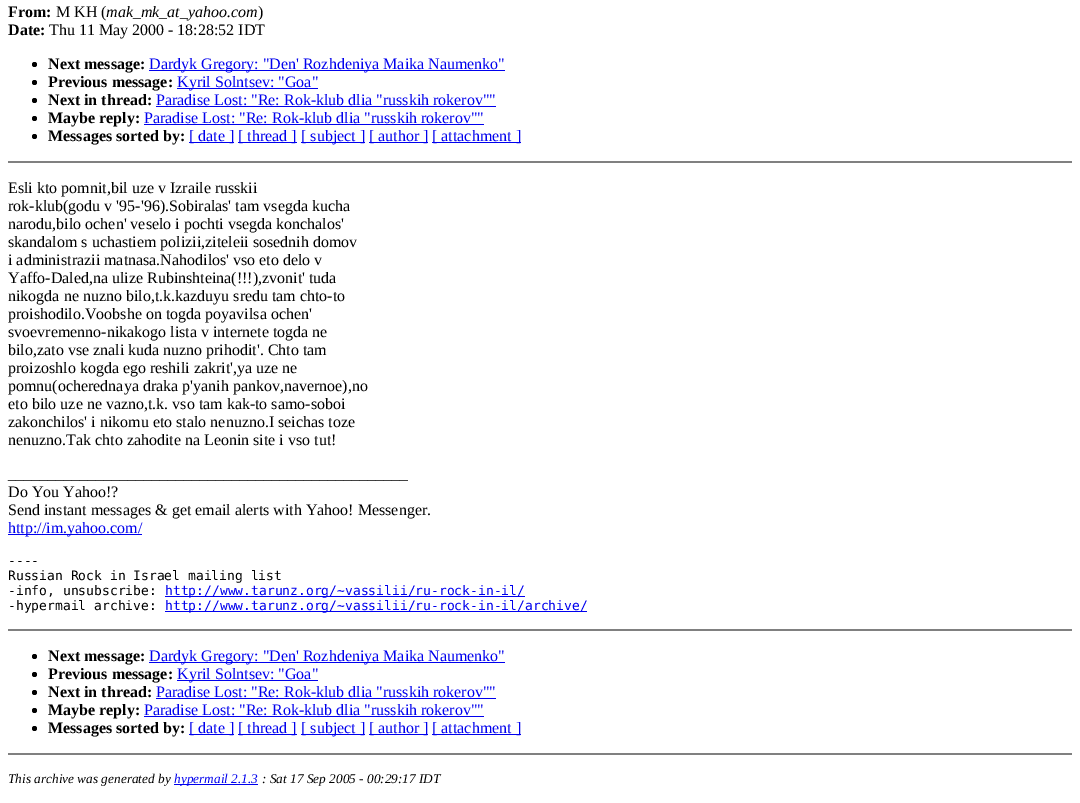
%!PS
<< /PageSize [1080 803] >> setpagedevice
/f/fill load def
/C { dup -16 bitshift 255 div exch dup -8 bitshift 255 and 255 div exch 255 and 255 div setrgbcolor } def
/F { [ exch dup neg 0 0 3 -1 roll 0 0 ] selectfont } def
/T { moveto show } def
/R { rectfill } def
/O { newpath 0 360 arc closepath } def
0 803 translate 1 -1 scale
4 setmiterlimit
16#FFFFFF C
0 0 1080 803 R
/LiberationSerif-Bold 16 F
16#000000 C
(From:) 8 17 T
/LiberationSerif-Regular 16 F
(M KH \() 56 17 T
/LiberationSerif-Italic 16 F
(mak_mk_at_yahoo.com) 106 17 T
/LiberationSerif-Regular 16 F
(\)) 258 17 T
/LiberationSerif-Bold 16 F
(Date:) 8 35 T
/LiberationSerif-Regular 16 F
(Thu 11 May 2000 - 18:28:52 IDT) 49 35 T
34.5 64.5 2.5 O f
/LiberationSerif-Bold 16 F
(Next message:) 48 69 T
16#0000EE C
149 70 356 1 R
/LiberationSerif-Regular 16 F
(Dardyk Gregory: "Den' Rozhdeniya Maika Naumenko") 149 69 T
16#000000 C
34.5 82.5 2.5 O f
/LiberationSerif-Bold 16 F
(Previous message:) 48 87 T
16#0000EE C
177 88 141 1 R
/LiberationSerif-Regular 16 F
(Kyril Solntsev: "Goa") 177 87 T
16#000000 C
34.5 100.5 2.5 O f
/LiberationSerif-Bold 16 F
(Next in thread:) 48 105 T
/LiberationSerif-Regular 16 F
16#0000EE C
(Paradise Lost: "Re: Rok-klub dlia "russkih rokerov"") 156 105 T
156 106 340 1 R
16#000000 C
34.5 118.5 2.5 O f
/LiberationSerif-Bold 16 F
(Maybe reply:) 48 123 T
/LiberationSerif-Regular 16 F
16#0000EE C
(Paradise Lost: "Re: Rok-klub dlia "russkih rokerov"") 144 123 T
144 124 340 1 R
16#000000 C
34.5 136.5 2.5 O f
/LiberationSerif-Bold 16 F
(Messages sorted by:) 48 141 T
16#0000EE C
189 142 45 1 R
/LiberationSerif-Regular 16 F
([ date ]) 189 141 T
238 142 59 1 R
([ thread ]) 238 141 T
301 142 64 1 R
([ subject ]) 301 141 T
369 142 59 1 R
([ author ]) 369 141 T
432 142 89 1 R
([ attachment ]) 432 141 T
16#808080 C
8 161 1064 2 R
16#000000 C
(Esli kto pomnit,bil uze v Izraile russkii) 8 193 T
(rok-klub\(godu v '95-'96\).Sobiralas' tam vsegda kucha) 8 211 T
(narodu,bilo ochen' veselo i pochti vsegda konchalos') 8 229 T
(skandalom s uchastiem polizii,ziteleii sosednih domov) 8 247 T
(i administrazii matnasa.Nahodilos' vso eto delo v) 8 265 T
(Yaffo-Daled,na ulize Rubinshteina\(!!!\),zvonit' tuda) 8 283 T
(nikogda ne nuzno bilo,t.k.kazduyu sredu tam chto-to) 8 301 T
(proishodilo.Voobshe on togda poyavilsa ochen') 8 319 T
(svoevremenno-nikakogo lista v internete togda ne) 8 337 T
(bilo,zato vse znali kuda nuzno prihodit'. Chto tam) 8 355 T
(proizoshlo kogda ego reshili zakrit',ya uze ne) 8 373 T
(pomnu\(ocherednaya draka p'yanih pankov,navernoe\),no) 8 391 T
(eto bilo uze ne vazno,t.k. vso tam kak-to samo-soboi) 8 409 T
(zakonchilos' i nikomu eto stalo nenuzno.I seichas toze) 8 427 T
(nenuzno.Tak chto zahodite na Leonin site i vso tut!) 8 445 T
(__________________________________________________) 8 479 T
(Do You Yahoo!?) 8 497 T
(Send instant messages & get email alerts with Yahoo! Messenger.) 8 515 T
16#0000EE C
8 534 134 1 R
(http://im.yahoo.com/) 8 533 T
/DejaVuSansMono-Regular 13 F
16#000000 C
(----) 8 565 T
(Russian Rock in Israel mailing list) 8 580 T
(-info, unsubscribe:) 8 595 T
16#0000EE C
165 596 360 1 R
(http://www.tarunz.org/~vassilii/ru-rock-in-il/) 165 595 T
16#000000 C
(-hypermail archive:) 8 610 T
16#0000EE C
165 611 422 1 R
(http://www.tarunz.org/~vassilii/ru-rock-in-il/archive/) 165 610 T
16#808080 C
8 629 1064 2 R
16#000000 C
34.5 656.5 2.5 O f
/LiberationSerif-Bold 16 F
(Next message:) 48 661 T
16#0000EE C
149 662 356 1 R
/LiberationSerif-Regular 16 F
(Dardyk Gregory: "Den' Rozhdeniya Maika Naumenko") 149 661 T
16#000000 C
34.5 674.5 2.5 O f
/LiberationSerif-Bold 16 F
(Previous message:) 48 679 T
16#0000EE C
177 680 141 1 R
/LiberationSerif-Regular 16 F
(Kyril Solntsev: "Goa") 177 679 T
16#000000 C
34.5 692.5 2.5 O f
/LiberationSerif-Bold 16 F
(Next in thread:) 48 697 T
/LiberationSerif-Regular 16 F
16#0000EE C
(Paradise Lost: "Re: Rok-klub dlia "russkih rokerov"") 156 697 T
156 698 340 1 R
16#000000 C
34.5 710.5 2.5 O f
/LiberationSerif-Bold 16 F
(Maybe reply:) 48 715 T
/LiberationSerif-Regular 16 F
16#0000EE C
(Paradise Lost: "Re: Rok-klub dlia "russkih rokerov"") 144 715 T
144 716 340 1 R
16#000000 C
34.5 728.5 2.5 O f
/LiberationSerif-Bold 16 F
(Messages sorted by:) 48 733 T
16#0000EE C
189 734 45 1 R
/LiberationSerif-Regular 16 F
([ date ]) 189 733 T
238 734 59 1 R
([ thread ]) 238 733 T
301 734 64 1 R
([ subject ]) 301 733 T
369 734 59 1 R
([ author ]) 369 733 T
432 734 89 1 R
([ attachment ]) 432 733 T
16#808080 C
8 753 1064 2 R
/LiberationSerif-Italic 13.3 F
16#000000 C
(This archive was generated by) 8 783 T
16#0000EE C
174 784 84 1 R
(hypermail 2.1.3) 174 783 T
16#000000 C
(: Sat 17 Sep 2005 - 00:29:17 IDT) 262 783 T
showpage
